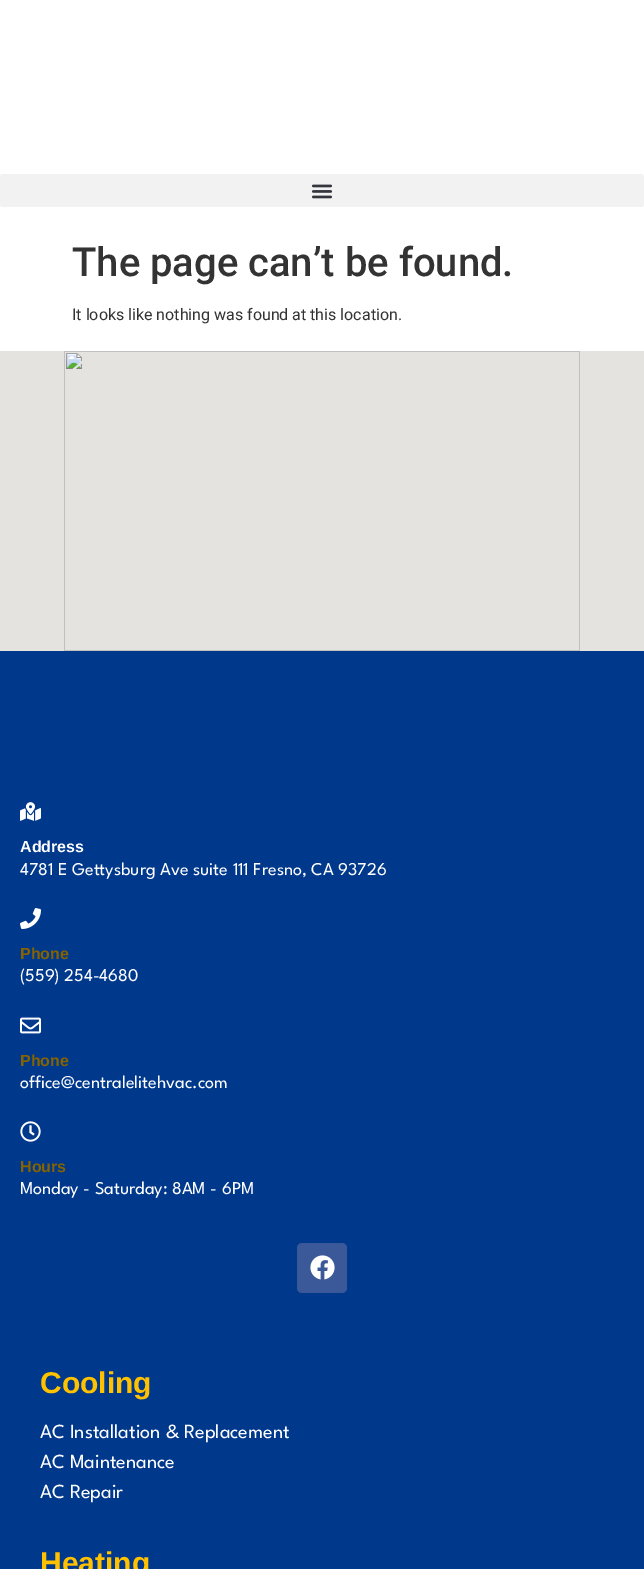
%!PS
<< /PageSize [644 1569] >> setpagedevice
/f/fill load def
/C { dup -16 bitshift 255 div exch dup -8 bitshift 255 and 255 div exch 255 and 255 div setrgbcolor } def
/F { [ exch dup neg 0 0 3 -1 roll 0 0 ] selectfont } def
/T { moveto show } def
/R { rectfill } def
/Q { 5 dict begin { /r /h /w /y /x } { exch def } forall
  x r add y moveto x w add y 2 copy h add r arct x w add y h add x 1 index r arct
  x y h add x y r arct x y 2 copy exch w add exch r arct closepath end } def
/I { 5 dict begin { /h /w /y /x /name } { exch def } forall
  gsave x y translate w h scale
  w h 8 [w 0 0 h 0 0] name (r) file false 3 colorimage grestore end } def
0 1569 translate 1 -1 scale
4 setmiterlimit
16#FFFFFF C
0 0 644 1569 R
16#F2F2F2 C
0 174 644 33 3 Q f
(1.rgb) 311 184 22 15 I
/Roboto-Medium 40 F
16#333333 C
(The page can’t be found.) 72 276 T
/Roboto-Regular 16 F
(It looks like nothing was found at this location.) 72 320 T
(2.rgb) 0 351 644 300 I
16#00388C C
0 651 644 918 R
(3.rgb) 20 802 21 19 I
/LiberationSans-Bold 16 F
16#FFFFFF C
(Address) 20 852 T
/LeagueSpartan-Regular 18 F
(4781 E Gettysburg Ave suite 111 Fresno, CA 93726) 20 875 T
(4.rgb) 20 908 21 21 I
/LiberationSans-Bold 16 F
16#856300 C
(Phone) 20 959 T
/LeagueSpartan-Regular 18 F
16#FFFFFF C
(\(559\) 254-4680) 20 981 T
(5.rgb) 20 1017 21 17 I
/LiberationSans-Bold 16 F
16#856300 C
(Phone) 20 1066 T
/LeagueSpartan-Regular 18 F
16#FFFFFF C
(office@centralelitehvac.com) 20 1088 T
(6.rgb) 20 1121 21 21 I
/LiberationSans-Bold 16 F
16#856300 C
(Hours) 20 1172 T
/LeagueSpartan-Regular 18 F
16#FFFFFF C
(Monday - Saturday: 8AM - 6PM) 20 1194 T
16#3B5998 C
297 1243 50 50 5 Q f
(7.rgb) 310 1255 25 25 I
/LiberationSans-Bold 30 F
16#FFC100 C
(Cooling) 40 1393 T
/LeagueSpartan-Regular 20 F
16#FFFFFF C
(AC Installation & Replacement) 40 1438 T
(AC Maintenance) 40 1468 T
(AC Repair) 40 1498 T
/LiberationSans-Bold 30 F
16#FFC100 C
(Heating) 40 1573 T
showpage
